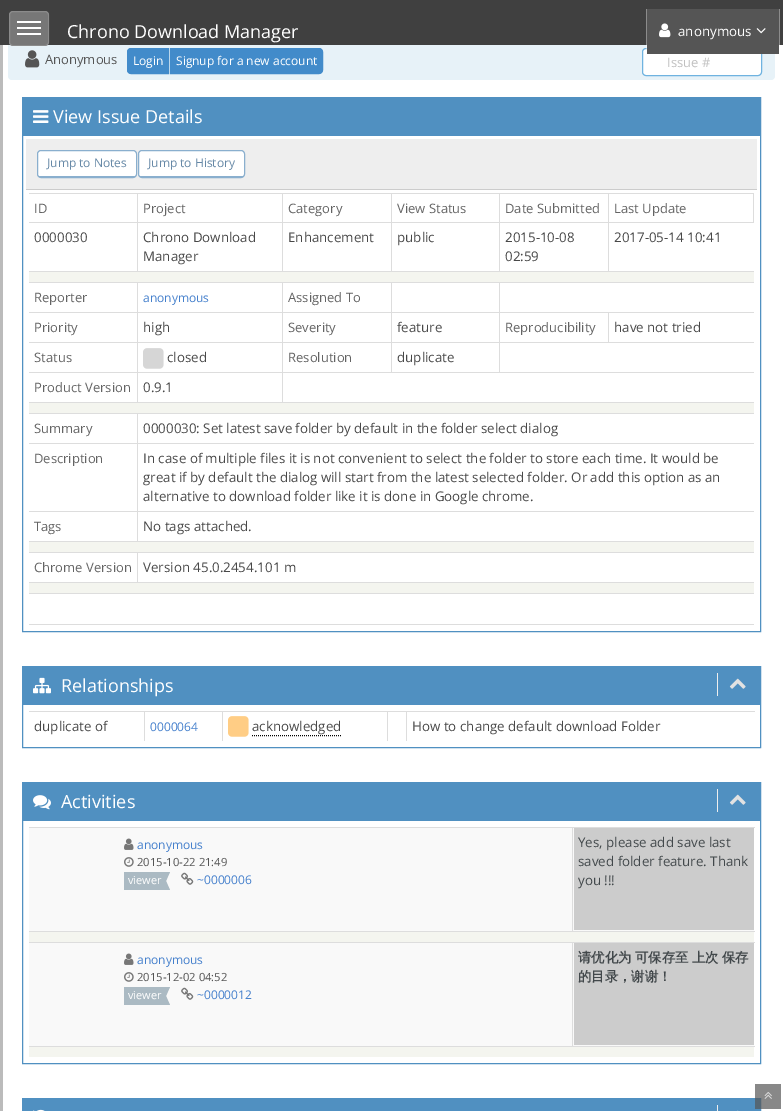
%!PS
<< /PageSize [783 1111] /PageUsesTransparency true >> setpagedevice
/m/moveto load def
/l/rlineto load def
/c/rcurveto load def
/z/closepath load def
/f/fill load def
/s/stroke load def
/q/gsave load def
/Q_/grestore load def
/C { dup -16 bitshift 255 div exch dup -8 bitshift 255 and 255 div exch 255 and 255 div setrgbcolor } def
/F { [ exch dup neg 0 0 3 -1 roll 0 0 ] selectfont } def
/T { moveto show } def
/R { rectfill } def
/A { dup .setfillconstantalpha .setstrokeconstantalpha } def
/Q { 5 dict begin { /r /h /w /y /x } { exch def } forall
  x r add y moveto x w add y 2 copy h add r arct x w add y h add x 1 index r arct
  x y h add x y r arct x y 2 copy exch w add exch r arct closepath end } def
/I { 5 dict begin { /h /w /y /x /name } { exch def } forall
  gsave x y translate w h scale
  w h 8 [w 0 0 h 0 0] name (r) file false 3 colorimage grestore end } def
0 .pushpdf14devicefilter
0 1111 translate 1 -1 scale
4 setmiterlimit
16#BBBBBB C
0 0 783 1111 R
16#FFFFFF C
3 45 780 1066 R
16#E7F2F8 C
8 39 767 41 4 Q f
16#404040 C
0 0 783 45 R
16#8C8C8C C
779 9 1 36 R
16#777777 C
9 11 40 35 4 Q f
0.15 A
16#FFFFFF C
9.5 11.5 39 34 3.5 Q s
1 A
17 21 24 2 R
17 27 24 2 R
17 33 24 2 R
/OpenSans-Regular 18 F
(Chrono Download Manager) 67 38 T
642.5 48.5 119 27 3.5 Q q f Q_
16#6FB3E0 C
s
0.4 A
16#FFFFFF C
646 9 1 45 R
1 A
16#555555 C
647 9 132 45 R
(1.rgb) 659 23 12 15 I
/OpenSans-Regular 13.35 F
16#FFFFFF C
(anonymous) 678 36 T
(2.rgb) 756 28 10 6 I
(3.rgb) 25 50 15 18 I
/OpenSans-Regular 13 F
16#555555 C
(Anonymous) 45 64 T
16#428BCA C
131 48.5 m 37.5 0 l 0 25 l -37.5 0 l -2 0 -3.5 -1.5 -3.5 -3.5 c 0 -18 l 0 -2 1.5 -3.5 3.5 -3.5 c z q f Q_
s
/OpenSans-Regular 12 F
16#FFFFFF C
(Login) 133 65 T
16#428BCA C
170.5 48.5 m 148.5 0 l 2 0 3.5 1.5 3.5 3.5 c 0 18 l 0 2 -1.5 3.5 -3.5 3.5 c -148.5 0 l z q f Q_
s
16#FFFFFF C
(Signup for a new account) 176 65 T
/OpenSans-Regular 13 F
16#C0C0C0 C
(Issue #) 667 67 T
16#5090C1 C
22.5 97.5 738 534 rectstroke
23 98 737 38 R
(4.rgb) 33 110 16 13 I
/OpenSans-Regular 18 F
16#FFFFFF C
(View Issue Details) 53 123 T
16#EEEEEE C
26 139 731 50 R
16#CCCCCC C
26 189 731 1 R
16#FFFFFF C
41 151 m 92 0 l 2 0 3 1 3 3 c 0 20 l 0 1 -1 2 -3 2 c -92 0 l -2 0 -3 -1 -3 -2 c 0 -20 l 0 -2 1 -3 3 -3 c z f
16#8AAFCE C
37.5 150.5 99 27 3.5 Q s
39 176 96 1 R
/OpenSans-Regular 12 F
16#6688A6 C
(Jump to Notes) 47 167 T
16#FFFFFF C
142 151 m 99 0 l 2 0 3 1 3 3 c 0 20 l 0 1 -1 2 -3 2 c -99 0 l -2 0 -3 -1 -3 -2 c 0 -20 l 0 -2 1 -3 3 -3 c z f
16#8AAFCE C
138.5 150.5 106 27 3.5 Q s
140 176 103 1 R
16#6688A6 C
(Jump to History) 148 167 T
16#DDDDDD C
608 193 146 1 R
608 222 146 1 R
29 271 725 1 R
608 222 1 50 R
499 222 110 1 R
608 193 1 30 R
499 193 110 1 R
499 222 1 50 R
391 222 109 1 R
499 193 1 30 R
391 193 109 1 R
391 222 1 50 R
282 222 110 1 R
391 193 1 30 R
282 193 110 1 R
282 222 1 50 R
137 222 146 1 R
282 193 1 30 R
137 193 146 1 R
137 222 1 50 R
29 222 109 1 R
137 193 1 30 R
29 193 109 1 R
/OpenSans-Regular 13 F
16#646464 C
(ID) 34 213 T
(Project) 143 213 T
(Category) 288 213 T
(View Status) 397 213 T
(Date Submitted) 505 213 T
16#DDDDDD C
753 193 1 30 R
16#646464 C
(Last Update) 614 213 T
/OpenSans-Regular 13.35 F
16#484848 C
(0000030) 34 242 T
(Chrono Download) 143 242 T
(Manager) 143 261 T
(Enhancement) 288 242 T
(public) 397 242 T
(2015-10-08) 505 242 T
(02:59) 505 261 T
(2017-05-14 10:41) 614 242 T
16#F4F5EF C
29 272 725 10 R
16#DDDDDD C
499 282 255 1 R
608 312 146 1 R
499 342 255 1 R
608 312 1 31 R
499 312 110 1 R
282 372 472 1 R
499 342 1 31 R
391 342 109 1 R
499 312 1 31 R
391 312 109 1 R
499 282 1 31 R
391 282 109 1 R
391 342 1 31 R
282 342 110 1 R
391 312 1 31 R
282 312 110 1 R
391 282 1 31 R
282 282 110 1 R
29 402 725 1 R
282 372 1 31 R
137 372 146 1 R
282 342 1 31 R
137 342 146 1 R
282 312 1 31 R
137 312 146 1 R
282 282 1 31 R
137 282 146 1 R
137 372 1 31 R
29 372 109 1 R
137 342 1 31 R
29 342 109 1 R
137 312 1 31 R
29 312 109 1 R
137 282 1 31 R
29 282 109 1 R
/OpenSans-Regular 13 F
16#646464 C
(Reporter) 34 302 T
/OpenSans-Regular 12 F
16#4580CC C
(anonymous) 143 302 T
/OpenSans-Regular 13 F
16#646464 C
(Assigned To) 288 302 T
(Priority) 34 332 T
/OpenSans-Regular 13.35 F
16#484848 C
(high) 143 332 T
/OpenSans-Regular 13 F
16#646464 C
(Severity) 288 332 T
/OpenSans-Regular 13.35 F
16#484848 C
(feature) 397 332 T
/OpenSans-Regular 13 F
16#646464 C
(Reproducibility) 505 332 T
/OpenSans-Regular 13.35 F
16#484848 C
(have not tried) 614 332 T
/OpenSans-Regular 13 F
16#646464 C
(Status) 34 362 T
(5.rgb) 143 348 21 21 I
/OpenSans-Regular 13.35 F
16#484848 C
(closed) 167 362 T
/OpenSans-Regular 13 F
16#646464 C
(Resolution) 288 362 T
/OpenSans-Regular 13.35 F
16#484848 C
(duplicate) 397 362 T
/OpenSans-Regular 13 F
16#646464 C
(Product Version) 34 392 T
/OpenSans-Regular 13.35 F
16#484848 C
(0.9.1) 143 392 T
16#F4F5EF C
29 403 725 10 R
16#DDDDDD C
137 413 617 1 R
137 443 617 1 R
137 511 617 1 R
29 541 725 1 R
137 511 1 31 R
29 511 109 1 R
137 443 1 69 R
29 443 109 1 R
137 413 1 31 R
29 413 109 1 R
/OpenSans-Regular 13 F
16#646464 C
(Summary) 34 433 T
/OpenSans-Regular 13.35 F
16#484848 C
(0000030: Set latest save folder by default in the folder select dialog) 143 433 T
/OpenSans-Regular 13 F
16#646464 C
(Description) 34 463 T
/OpenSans-Regular 13.35 F
16#484848 C
(In case of multiple files it is not convenient to select the folder to store each time. It would be) 143 463 T
(great if by default the dialog will start from the latest selected folder. Or add this option as an) 143 482 T
(alternative to download folder like it is done in Google chrome.) 143 501 T
/OpenSans-Regular 13 F
16#646464 C
(Tags) 34 531 T
/OpenSans-Regular 13.35 F
16#484848 C
(No tags attached.) 143 531 T
16#F4F5EF C
29 542 725 10 R
16#DDDDDD C
137 552 617 1 R
29 582 725 1 R
137 552 1 31 R
29 552 109 1 R
/OpenSans-Regular 13 F
16#646464 C
(Chrome Version) 34 572 T
/OpenSans-Regular 13.35 F
16#484848 C
(Version 45.0.2454.101 m) 143 572 T
16#F4F5EF C
29 583 725 10 R
16#DDDDDD C
29 593 725 1 R
29 624 725 1 R
16#5090C1 C
22.5 666.5 738 81 rectstroke
23 667 737 38 R
(6.rgb) 33 677 18 17 I
/OpenSans-Regular 18 F
16#FFFFFF C
(Relationships) 61 692 T
16#EEEEEE C
717 673 1 23 R
(7.rgb) 729 678 17 11 I
16#DDDDDD C
406 711 349 1 R
406 711 1 30 R
387 711 20 1 R
387 711 1 30 R
222 711 166 1 R
222 711 1 30 R
144 711 79 1 R
144 711 1 30 R
29 711 116 1 R
/OpenSans-Regular 13.35 F
16#484848 C
(duplicate of) 34 731 T
/OpenSans-Regular 12 F
16#4580CC C
(0000064) 150 731 T
(8.rgb) 228 716 21 21 I
/OpenSans-Regular 13.35 F
16#484848 C
(acknowledged) 252 731 T
16#000000 C
[1 1] 0 setdash
252 735.5 m 90 0 l s
16#484848 C
(How to change default download Folder) 412 731 T
16#5090C1 C
[] 0 setdash
22.5 782.5 738 281 rectstroke
23 783 737 38 R
(9.rgb) 33 795 18 15 I
/OpenSans-Regular 18 F
16#FFFFFF C
(Activities) 61 808 T
16#EEEEEE C
717 789 1 23 R
(7.rgb) 729 794 17 11 I
16#F9F9F9 C
29 828 725 103 R
16#DDDDDD C
572 827 183 1 R
29 931 726 1 R
572 827 1 105 R
29 827 544 1 R
(10.rgb) 124 838 10 12 I
/OpenSans-Regular 12 F
16#4580CC C
(anonymous) 137 849 T
(11.rgb) 124 857 10 10 I
/OpenSans-Regular 11.25 F
16#555555 C
(2015-10-22 21:49) 137 866 T
16#ABBAC3 C
124 872 42 18 R
/OpenSans-Regular 11 F
16#FFFFFF C
(viewer) 128 884 T
16#ABBAC3 C
162 872 m 8 0 l -4 9 l z 170 890 m -8 0 l 4 -9 l z f
(12.rgb) 181 872 13 13 I
/OpenSans-Regular 12 F
16#4580CC C
(~0000006) 197 884 T
16#CCCCCC C
574 828 180 102 R
/OpenSans-Regular 13.35 F
16#42484B C
(Yes, please add save last) 578 847 T
(saved folder feature. Thank) 578 866 T
(you !!!) 578 885 T
16#F4F5EF C
29 932 725 10 R
16#F9F9F9 C
29 943 725 103 R
16#DDDDDD C
572 942 183 1 R
29 1046 726 1 R
572 942 1 105 R
29 942 544 1 R
(10.rgb) 124 953 10 12 I
/OpenSans-Regular 12 F
16#4580CC C
(anonymous) 137 964 T
(11.rgb) 124 972 10 10 I
/OpenSans-Regular 11.25 F
16#555555 C
(2015-12-02 04:52) 137 981 T
16#ABBAC3 C
124 987 42 18 R
/OpenSans-Regular 11 F
16#FFFFFF C
(viewer) 128 999 T
16#ABBAC3 C
162 987 m 8 0 l -4 9 l z 170 1005 m -8 0 l 4 -9 l z f
(12.rgb) 181 987 13 13 I
/OpenSans-Regular 12 F
16#4580CC C
(~0000012) 197 999 T
16#CCCCCC C
574 943 180 102 R
/WenQuanYiZenHei-Bold 13.35 F
16#42484B C
578 962 m -.5 0 32 (请优化为 可保存至 上次 保存) widthshow
(的目录，谢谢！) 578 981 T
16#F4F5EF C
29 1047 725 10 R
16#5090C1 C
22.5 1098.5 738 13 rectstroke
23 1099 737 12 R
(13.rgb) 33 1109 12 2 I
16#EEEEEE C
717 1105 1 6 R
(14.rgb) 737 1110 2 1 I
0.7 A
16#555555 C
755 1084 26 25 R
1 A
(15.rgb) 764 1092 8 7 I
.poppdf14devicefilter showpage
